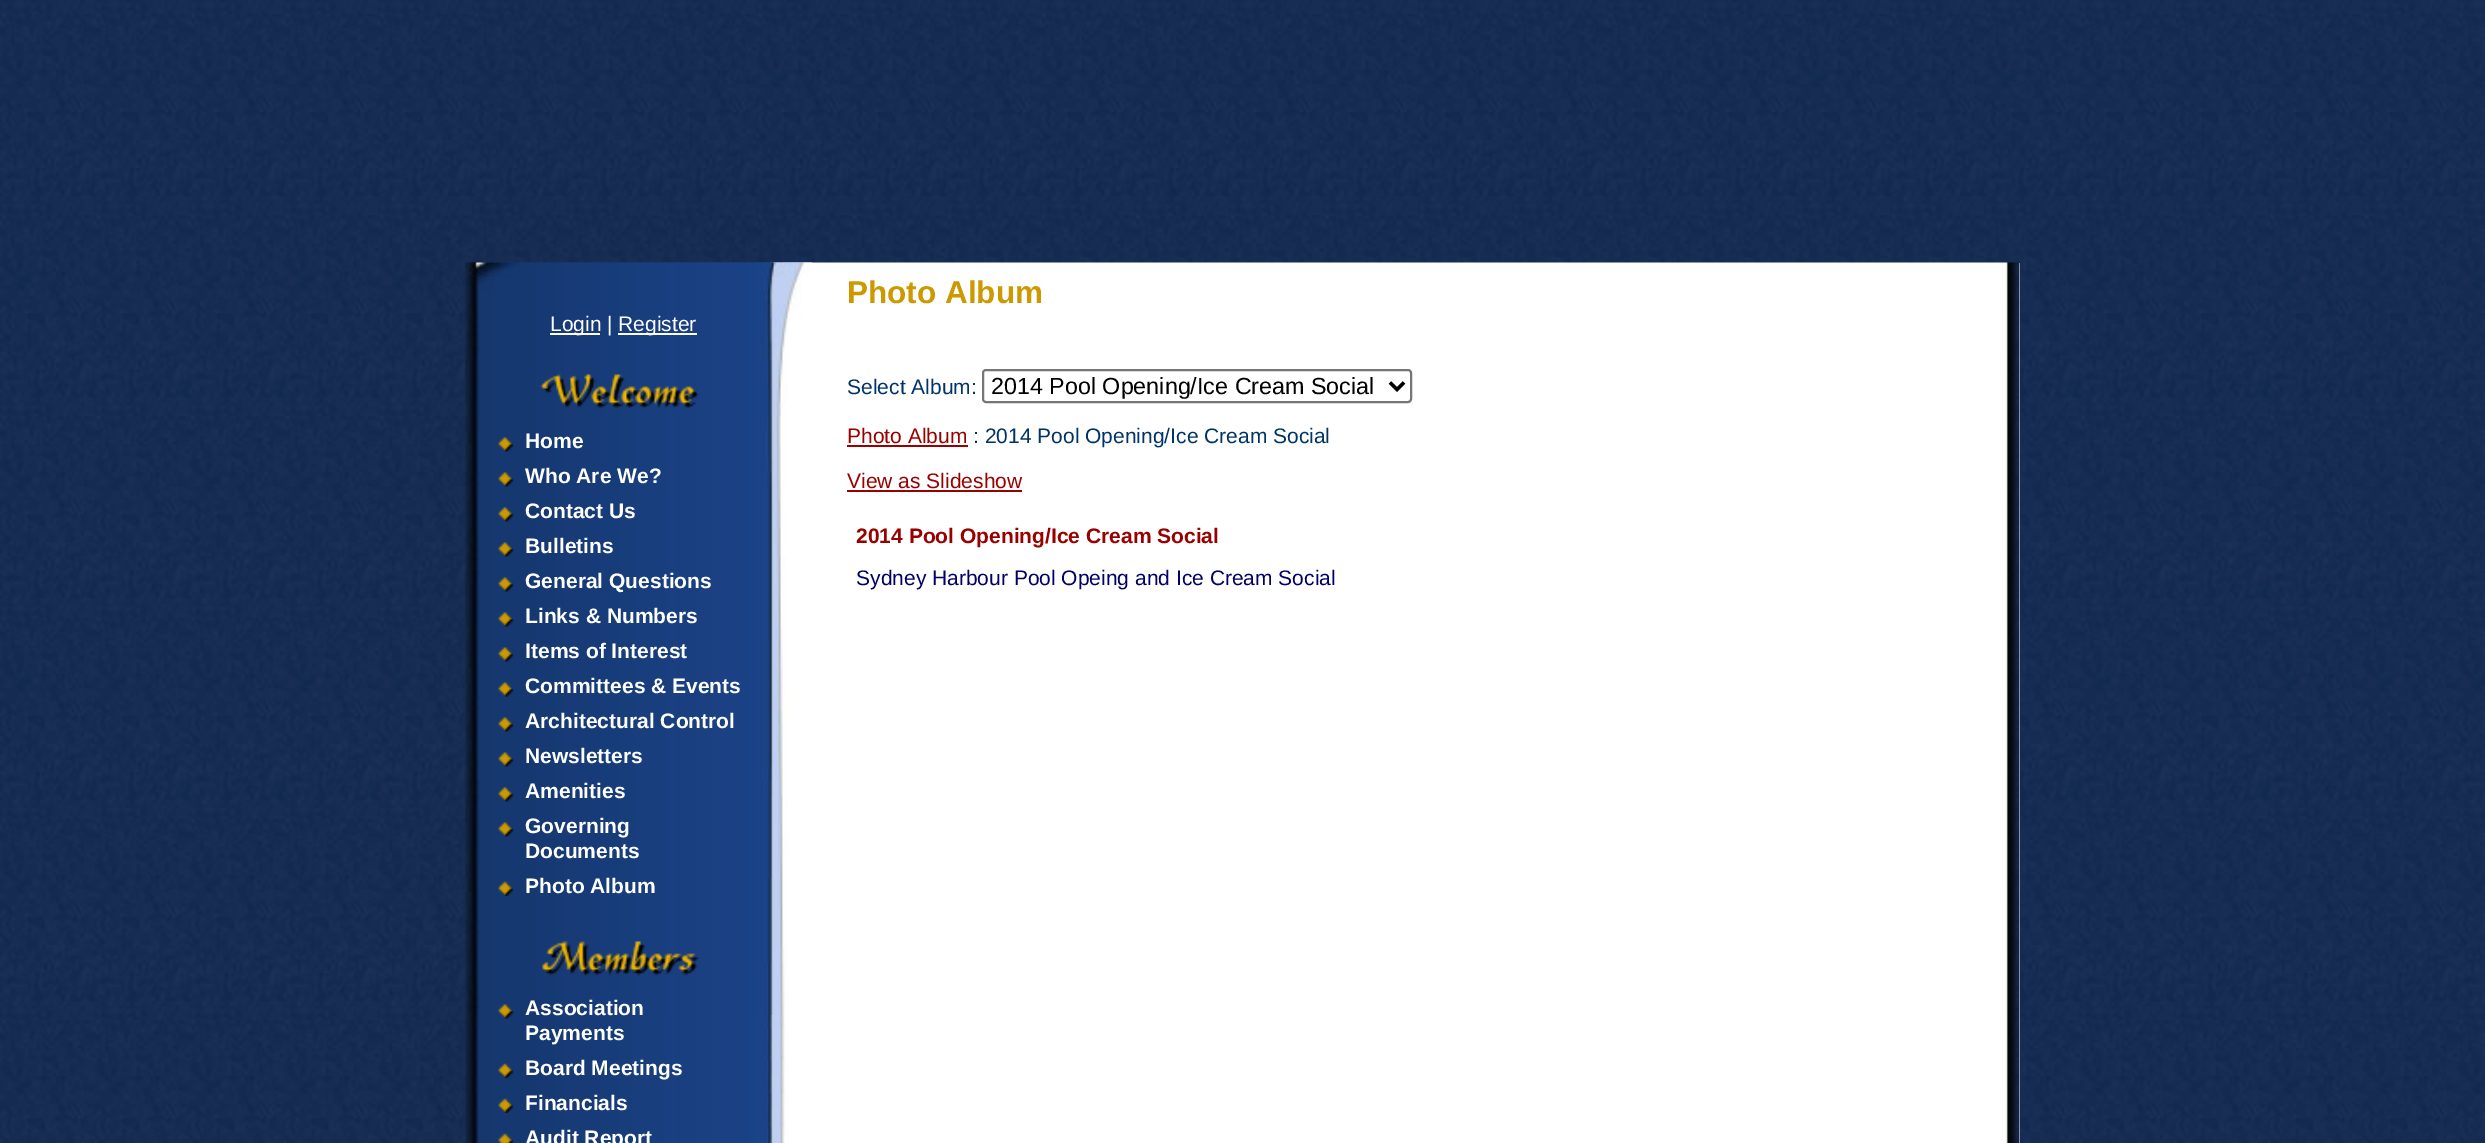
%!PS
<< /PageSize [2485 1143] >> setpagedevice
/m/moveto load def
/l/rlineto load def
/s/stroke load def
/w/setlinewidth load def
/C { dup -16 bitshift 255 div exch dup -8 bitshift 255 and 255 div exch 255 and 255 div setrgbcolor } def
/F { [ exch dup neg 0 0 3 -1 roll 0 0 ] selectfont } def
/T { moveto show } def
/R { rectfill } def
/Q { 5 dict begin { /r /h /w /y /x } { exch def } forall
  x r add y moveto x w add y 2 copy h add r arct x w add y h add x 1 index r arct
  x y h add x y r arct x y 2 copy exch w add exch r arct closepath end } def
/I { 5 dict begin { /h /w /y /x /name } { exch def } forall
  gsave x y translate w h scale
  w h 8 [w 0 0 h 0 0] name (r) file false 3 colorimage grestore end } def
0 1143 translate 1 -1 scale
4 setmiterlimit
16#FFFFFF C
0 0 2485 1143 R
(1.rgb) 0 0 2485 1143 I
(2.rgb) 465 262 347 881 I
(3.rgb) 465 262 347 753 I
550 333 50 2 R
/LiberationSans-Regular 21 F
(Login |) 550 331 T
618 333 79 2 R
(Register) 618 331 T
(4.rgb) 540 374 159 35 I
(5.rgb) 498 437 16 15 I
/LiberationSans-Bold 21 F
(Home) 525 448 T
(5.rgb) 498 472 16 15 I
(Who Are We?) 525 483 T
(5.rgb) 498 507 16 15 I
(Contact Us) 525 518 T
(5.rgb) 498 542 16 15 I
(Bulletins) 525 553 T
(5.rgb) 498 577 16 15 I
(General Questions) 525 588 T
(5.rgb) 498 612 16 15 I
(Links & Numbers) 525 623 T
(5.rgb) 498 647 16 15 I
(Items of Interest) 525 658 T
(5.rgb) 498 682 16 15 I
(Committees & Events) 525 693 T
(5.rgb) 498 717 16 15 I
(Architectural Control) 525 728 T
(5.rgb) 498 752 16 15 I
(Newsletters) 525 763 T
(5.rgb) 498 787 16 15 I
(Amenities) 525 798 T
(5.rgb) 498 822 16 15 I
(Governing) 525 833 T
(Documents) 525 858 T
(6.rgb) 498 881 16 15 I
(Photo Album) 525 893 T
(7.rgb) 542 941 157 35 I
(5.rgb) 498 1004 16 15 I
(Association) 525 1015 T
(Payments) 525 1040 T
(6.rgb) 498 1063 16 15 I
(Board Meetings) 525 1075 T
(6.rgb) 498 1098 16 15 I
(Financials) 525 1110 T
(8.rgb) 498 1133 16 10 I
(Audit Report) 525 1145 T
2019 263 1 880 R
(9.rgb) 812 262 1208 881 I
/LiberationSans-Bold 31.5 F
16#CC9900 C
(Photo Album) 847 303 T
/LiberationSans-Regular 21 F
16#003366 C
(Select Album:) 847 394 T
16#767676 C
2 w
983 370 428 32 3 Q s
16#000000 C
3.5 w
1390 382.5 m 7 7 l 7 -7 l s
/LiberationSans-Regular 23.3 F
(2014 Pool Opening/Ice Cream Social) 991 394 T
/LiberationSans-Regular 21 F
16#990000 C
(Photo Album) 847 443 T
847 445 121 2 R
16#003366 C
(: 2014 Pool Opening/Ice Cream Social) 973 443 T
16#990000 C
(View as Slideshow) 847 488 T
847 490 175 2 R
/LiberationSans-Bold 21 F
(2014 Pool Opening/Ice Cream Social) 856 543 T
/LiberationSans-Regular 21 F
16#000066 C
(Sydney Harbour Pool Opeing and Ice Cream Social) 856 585 T
showpage
